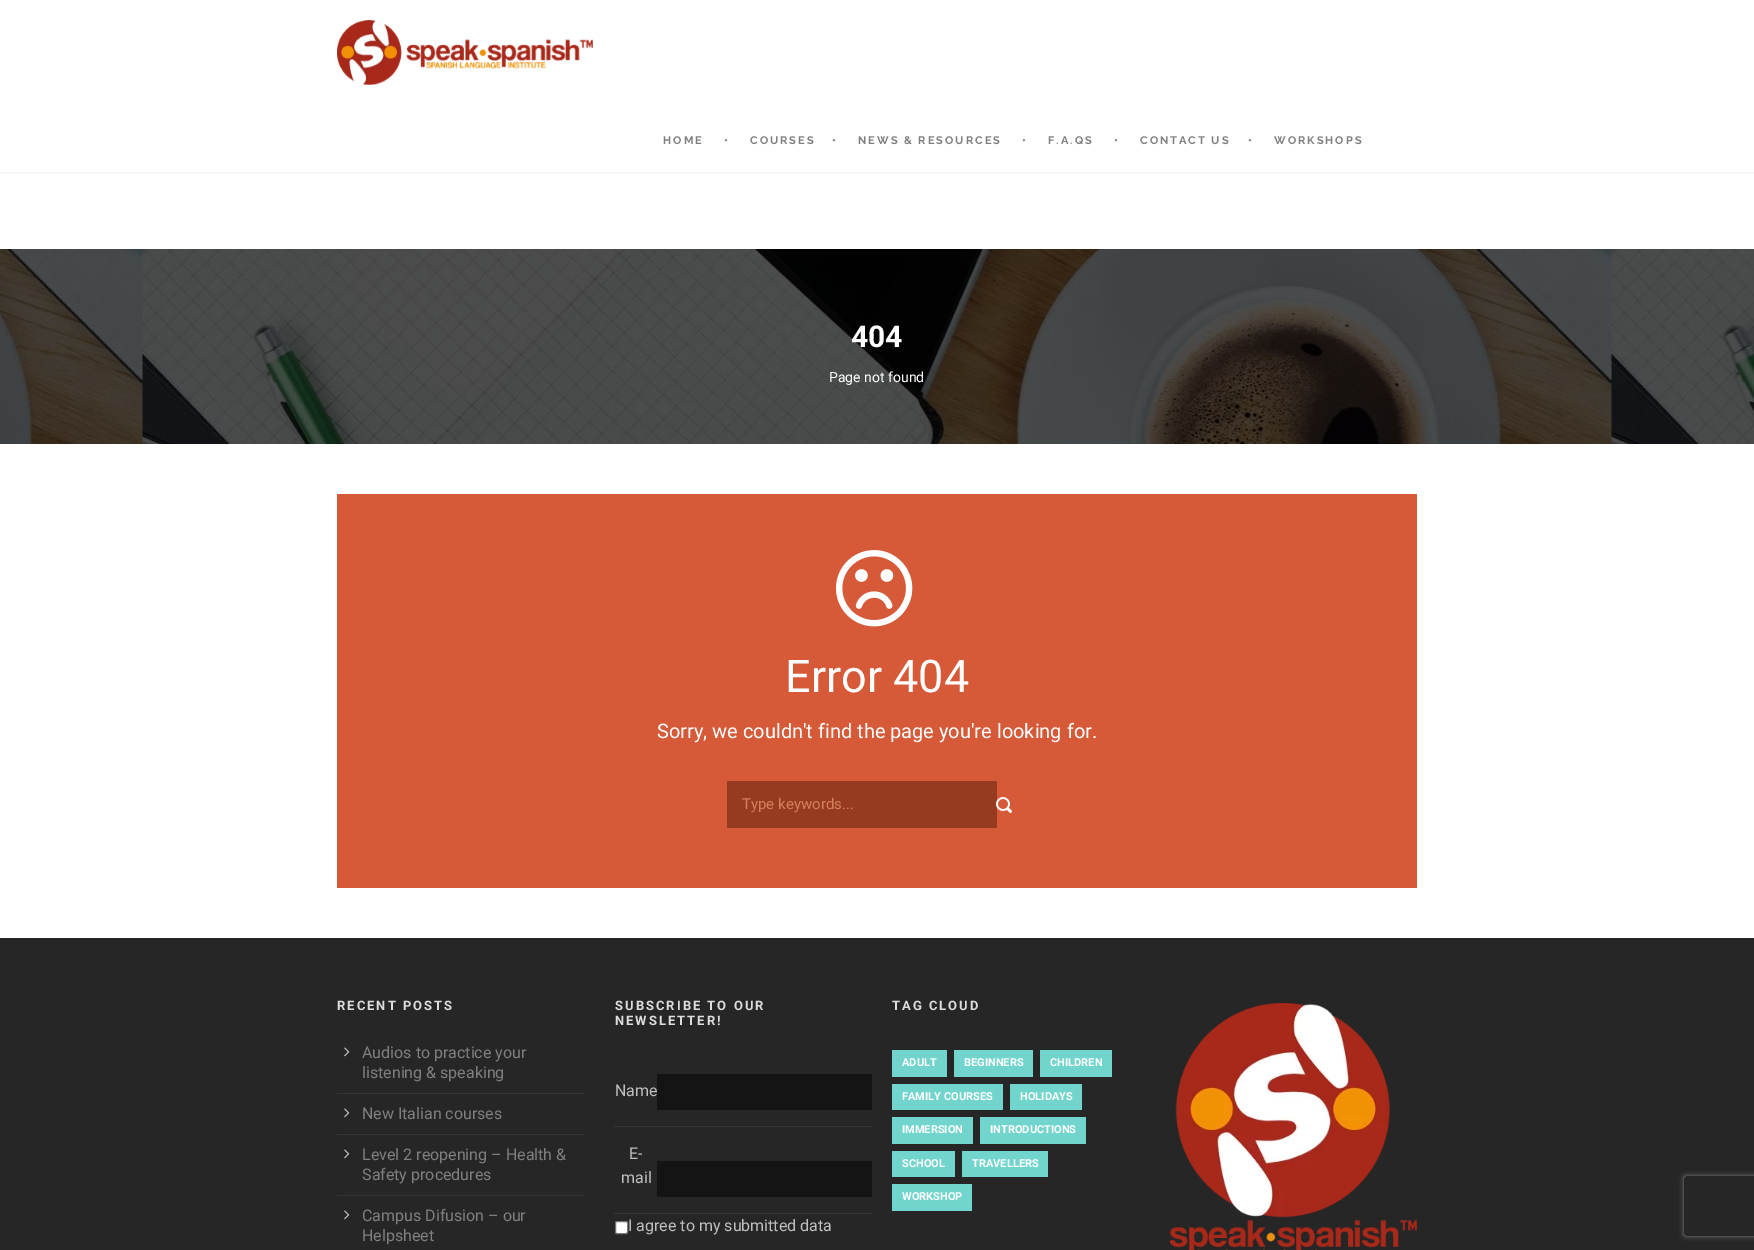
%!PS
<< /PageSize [1754 1250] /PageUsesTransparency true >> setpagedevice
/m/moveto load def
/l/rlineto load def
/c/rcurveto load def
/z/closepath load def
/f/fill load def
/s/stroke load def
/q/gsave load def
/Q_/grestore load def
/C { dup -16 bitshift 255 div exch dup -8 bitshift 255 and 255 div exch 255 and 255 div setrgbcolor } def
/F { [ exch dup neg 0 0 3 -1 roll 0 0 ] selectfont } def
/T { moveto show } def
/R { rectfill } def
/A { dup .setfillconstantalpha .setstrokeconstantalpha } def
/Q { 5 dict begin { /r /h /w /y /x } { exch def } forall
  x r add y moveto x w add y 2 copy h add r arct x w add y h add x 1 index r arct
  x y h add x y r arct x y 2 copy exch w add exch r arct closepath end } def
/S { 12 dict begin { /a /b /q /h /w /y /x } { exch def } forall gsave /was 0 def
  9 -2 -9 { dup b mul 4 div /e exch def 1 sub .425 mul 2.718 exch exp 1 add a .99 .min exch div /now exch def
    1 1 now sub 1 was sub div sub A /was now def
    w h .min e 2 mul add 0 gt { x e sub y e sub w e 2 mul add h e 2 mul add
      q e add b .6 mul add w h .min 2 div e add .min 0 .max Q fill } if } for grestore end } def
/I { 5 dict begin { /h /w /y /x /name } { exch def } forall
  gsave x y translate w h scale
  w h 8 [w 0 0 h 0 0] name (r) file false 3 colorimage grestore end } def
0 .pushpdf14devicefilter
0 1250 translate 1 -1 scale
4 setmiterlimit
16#FFFFFF C
0 0 1754 1250 R
16#F5F5F5 C
0 172 1754 2 R
(1.rgb) 337 20 256 65 I
/Raleway-Bold 11 F
16#7F7F7F C
663 144 m 2 0 (HOME) ashow
724 144 m 2 0 (•) ashow
750 144 m 2 0 (COURSES) ashow
832 144 m 2 0 (•) ashow
858 144 m 2 0 (NEWS & RESOURCES) ashow
1022 144 m 2 0 (•) ashow
1048 144 m 2 0 (F.A.QS) ashow
1114 144 m 2 0 (•) ashow
1140 144 m 2 0 (CONTACT US) ashow
1248 144 m 2 0 (•) ashow
1274 144 m 2 0 (WORKSHOPS) ashow
(2.rgb) 0 249 1754 195 I
/Roboto-Bold 30 F
16#FFFFFF C
(404) 851 347 T
/Roboto-Regular 14 F
(Page not found) 829 382 T
16#D65938 C
337 494 1080 394 R
(3.rgb) 836 550 77 77 I
/Roboto-Regular 45 F
16#FFFFFF C
(Error 404) 785 692 T
/Roboto-Regular 20 F
(Sorry, we couldn't find the page you're looking for.) 657 738 T
16#963A20 C
727 781 270 47 R
/Roboto-Regular 15 F
16#D57F5C C
(Type keywords...) 742 809 T
(4.rgb) 996 797 16 16 I
16#262626 C
0 938 1754 312 R
/Roboto-Bold 13 F
16#DDDDDD C
337 1010 m 2 0 (RECENT POSTS) ashow
16#363636 C
337 1093 248 1 R
(5.rgb) 344 1047 6 10 I
/Roboto-Regular 16 F
16#7F7F7F C
(Audios to practice your) 362 1058 T
(listening & speaking) 362 1078 T
16#363636 C
337 1134 248 1 R
(5.rgb) 344 1108 6 10 I
16#7F7F7F C
(New Italian courses) 362 1119 T
16#363636 C
337 1195 248 1 R
(5.rgb) 344 1149 6 10 I
16#7F7F7F C
(Level 2 reopening – Health &) 362 1160 T
(Safety procedures) 362 1180 T
(5.rgb) 344 1210 6 10 I
(Campus Difusion – our) 362 1221 T
(Helpsheet) 362 1241 T
/Roboto-Bold 13 F
16#DDDDDD C
615 1010 m 2 0 (SUBSCRIBE TO OUR) ashow
615 1025 m 2 0 (NEWSLETTER!) ashow
16#363636 C
614 1126 259 1 R
16#141414 C
657 1074 215 36 R
/Roboto-Regular 16 F
16#BFBFBF C
(Name) 615 1096 T
(E-) 629 1159 T
(mail) 621 1183 T
16#363636 C
614 1213 259 1 R
16#141414 C
657 1161 215 36 R
16#FFFFFF C
615.5 1221.5 12 12 1.5 Q q f Q_
16#767676 C
s
16#BFBFBF C
(I agree to my submitted data) 628 1231 T
/Roboto-Bold 13 F
16#DDDDDD C
892 1010 m 2 0 (TAG CLOUD) ashow
16#72D5CD C
892 1050 55 27 R
/Roboto-Bold 11 F
16#FFFFFF C
(ADULT) 902 1066 T
16#72D5CD C
954 1050 79 27 R
16#FFFFFF C
(BEGINNERS) 964 1066 T
16#72D5CD C
1040 1050 72 27 R
16#FFFFFF C
(CHILDREN) 1050 1066 T
16#72D5CD C
892 1084 111 26 R
16#FFFFFF C
(FAMILY COURSES) 902 1100 T
16#72D5CD C
1010 1084 72 26 R
16#FFFFFF C
(HOLIDAYS) 1020 1100 T
16#72D5CD C
892 1117 81 27 R
16#FFFFFF C
(IMMERSION) 902 1133 T
16#72D5CD C
980 1117 106 27 R
16#FFFFFF C
(INTRODUCTIONS) 990 1133 T
16#72D5CD C
892 1151 63 26 R
16#FFFFFF C
(SCHOOL) 902 1167 T
16#72D5CD C
962 1151 86 26 R
16#FFFFFF C
(TRAVELLERS) 972 1167 T
16#72D5CD C
892 1184 80 27 R
16#FFFFFF C
(WORKSHOP) 902 1200 T
(6.rgb) 1170 1003 247 247 I
q
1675 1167 m 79 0 l 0 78 l -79 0 l z 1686 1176 m 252 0 l 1 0 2 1 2 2 c 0 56 l 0 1 -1 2 -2 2 c -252 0 l -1 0 -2 -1 -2 -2 c 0 -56 l 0 -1 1 -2 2 -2 c z eoclip newpath
16#808080 C
1684 1176 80 60 2 2.5 1 S
Q_
.poppdf14devicefilter showpage
